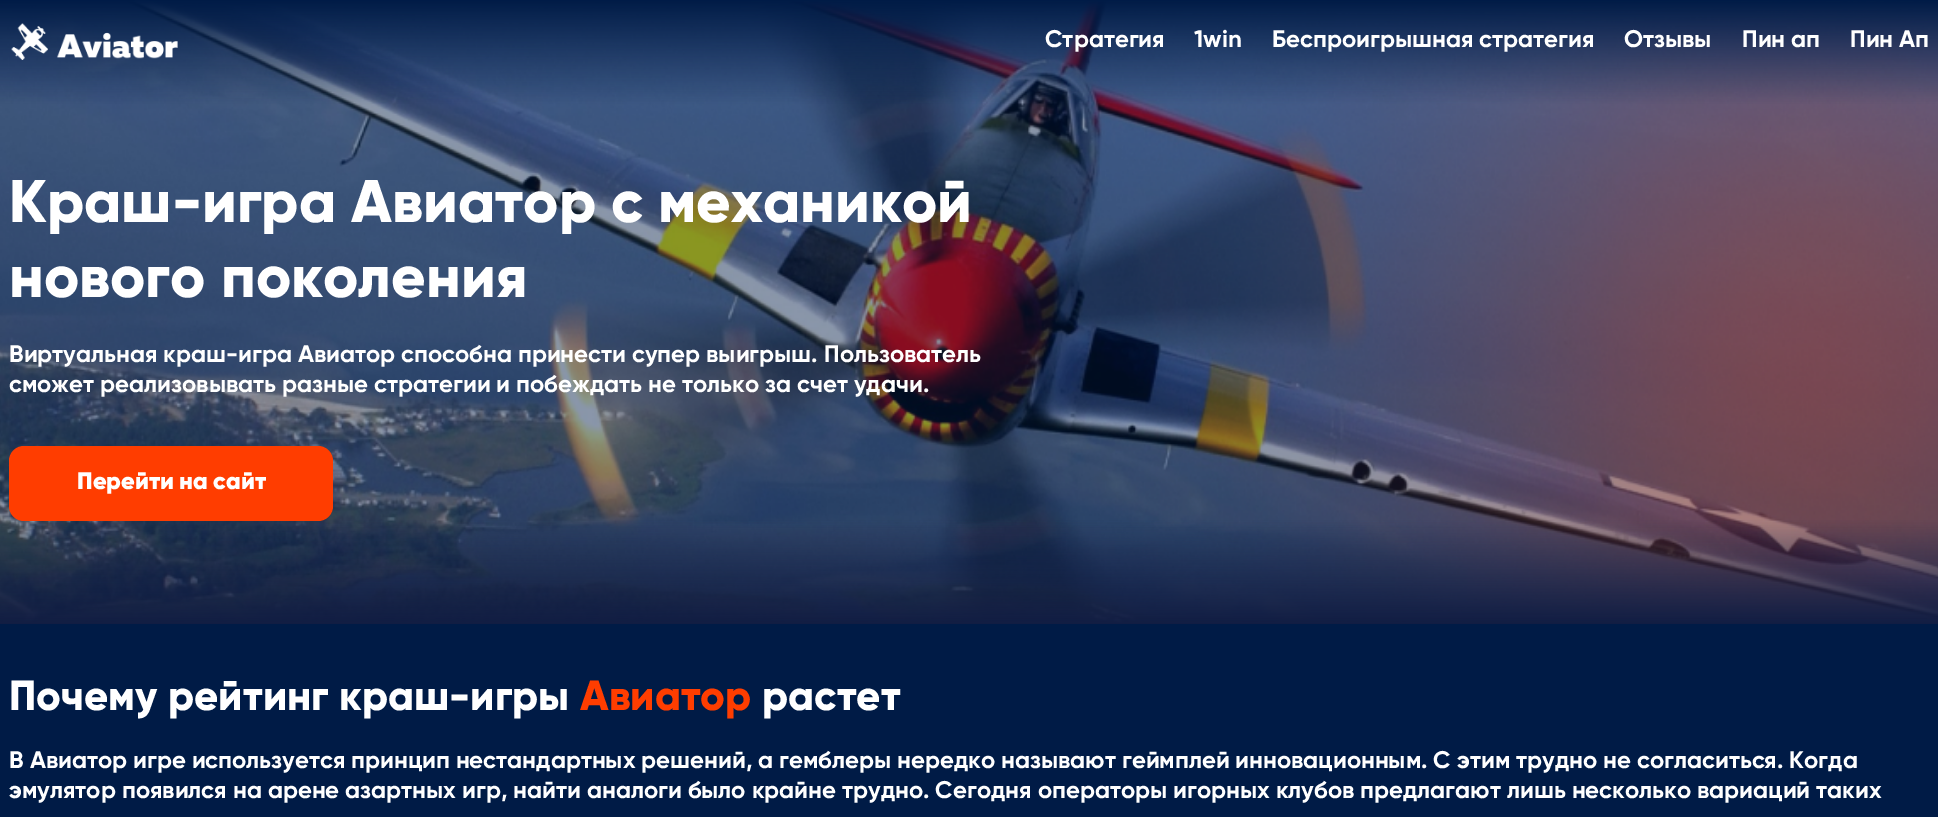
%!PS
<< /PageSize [1938 817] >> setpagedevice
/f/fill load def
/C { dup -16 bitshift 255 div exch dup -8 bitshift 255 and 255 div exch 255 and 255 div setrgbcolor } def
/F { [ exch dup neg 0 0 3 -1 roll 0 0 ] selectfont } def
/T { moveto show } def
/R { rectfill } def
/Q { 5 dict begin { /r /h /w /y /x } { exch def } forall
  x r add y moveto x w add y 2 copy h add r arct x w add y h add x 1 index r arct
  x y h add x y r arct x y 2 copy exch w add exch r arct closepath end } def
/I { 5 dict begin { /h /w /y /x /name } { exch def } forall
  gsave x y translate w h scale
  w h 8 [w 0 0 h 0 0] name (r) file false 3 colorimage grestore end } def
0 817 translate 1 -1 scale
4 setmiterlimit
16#001B46 C
0 0 1938 817 R
(1.rgb) 0 0 1938 624 I
(2.rgb) 11 23 167 37 I
/Gilroy-Bold 24 F
16#FFFFFF C
(Cтратегия) 1045 47 T
(1win) 1194 47 T
(Беспроигрышная стратегия) 1272 47 T
(Отзывы) 1624 47 T
(Пин ап) 1742 47 T
(Пин Ап) 1850 47 T
/Gilroy-ExtraBold 60 F
(Краш-игра Авиатор с механикой) 9 222 T
(нового поколения) 9 297 T
/Gilroy-Bold 24 F
(Виртуальная краш-игра Авиатор способна принести супер выигрыш. Пользователь) 9 362 T
(сможет реализовывать разные стратегии и побеждать не только за счет удачи.) 9 392 T
16#FF3D00 C
9 446 324 75 15 Q f
/Gilroy-Black 24 F
16#FFFFFF C
(Перейти на сайт) 77 489 T
/Gilroy-ExtraBold 42 F
(Почему рейтинг краш-игры) 9 710 T
16#FF3D00 C
(Авиатор) 580 710 T
16#FFFFFF C
(растет) 762 710 T
/Gilroy-Bold 24 F
(В Авиатор игре используется принцип нестандартных решений, а гемблеры нередко называют геймплей инновационным. С этим трудно не согласиться. Когда) 9 768 T
(эмулятор появился на арене азартных игр, найти аналоги было крайне трудно. Сегодня операторы игорных клубов предлагают лишь несколько вариаций таких) 9 798 T
showpage
